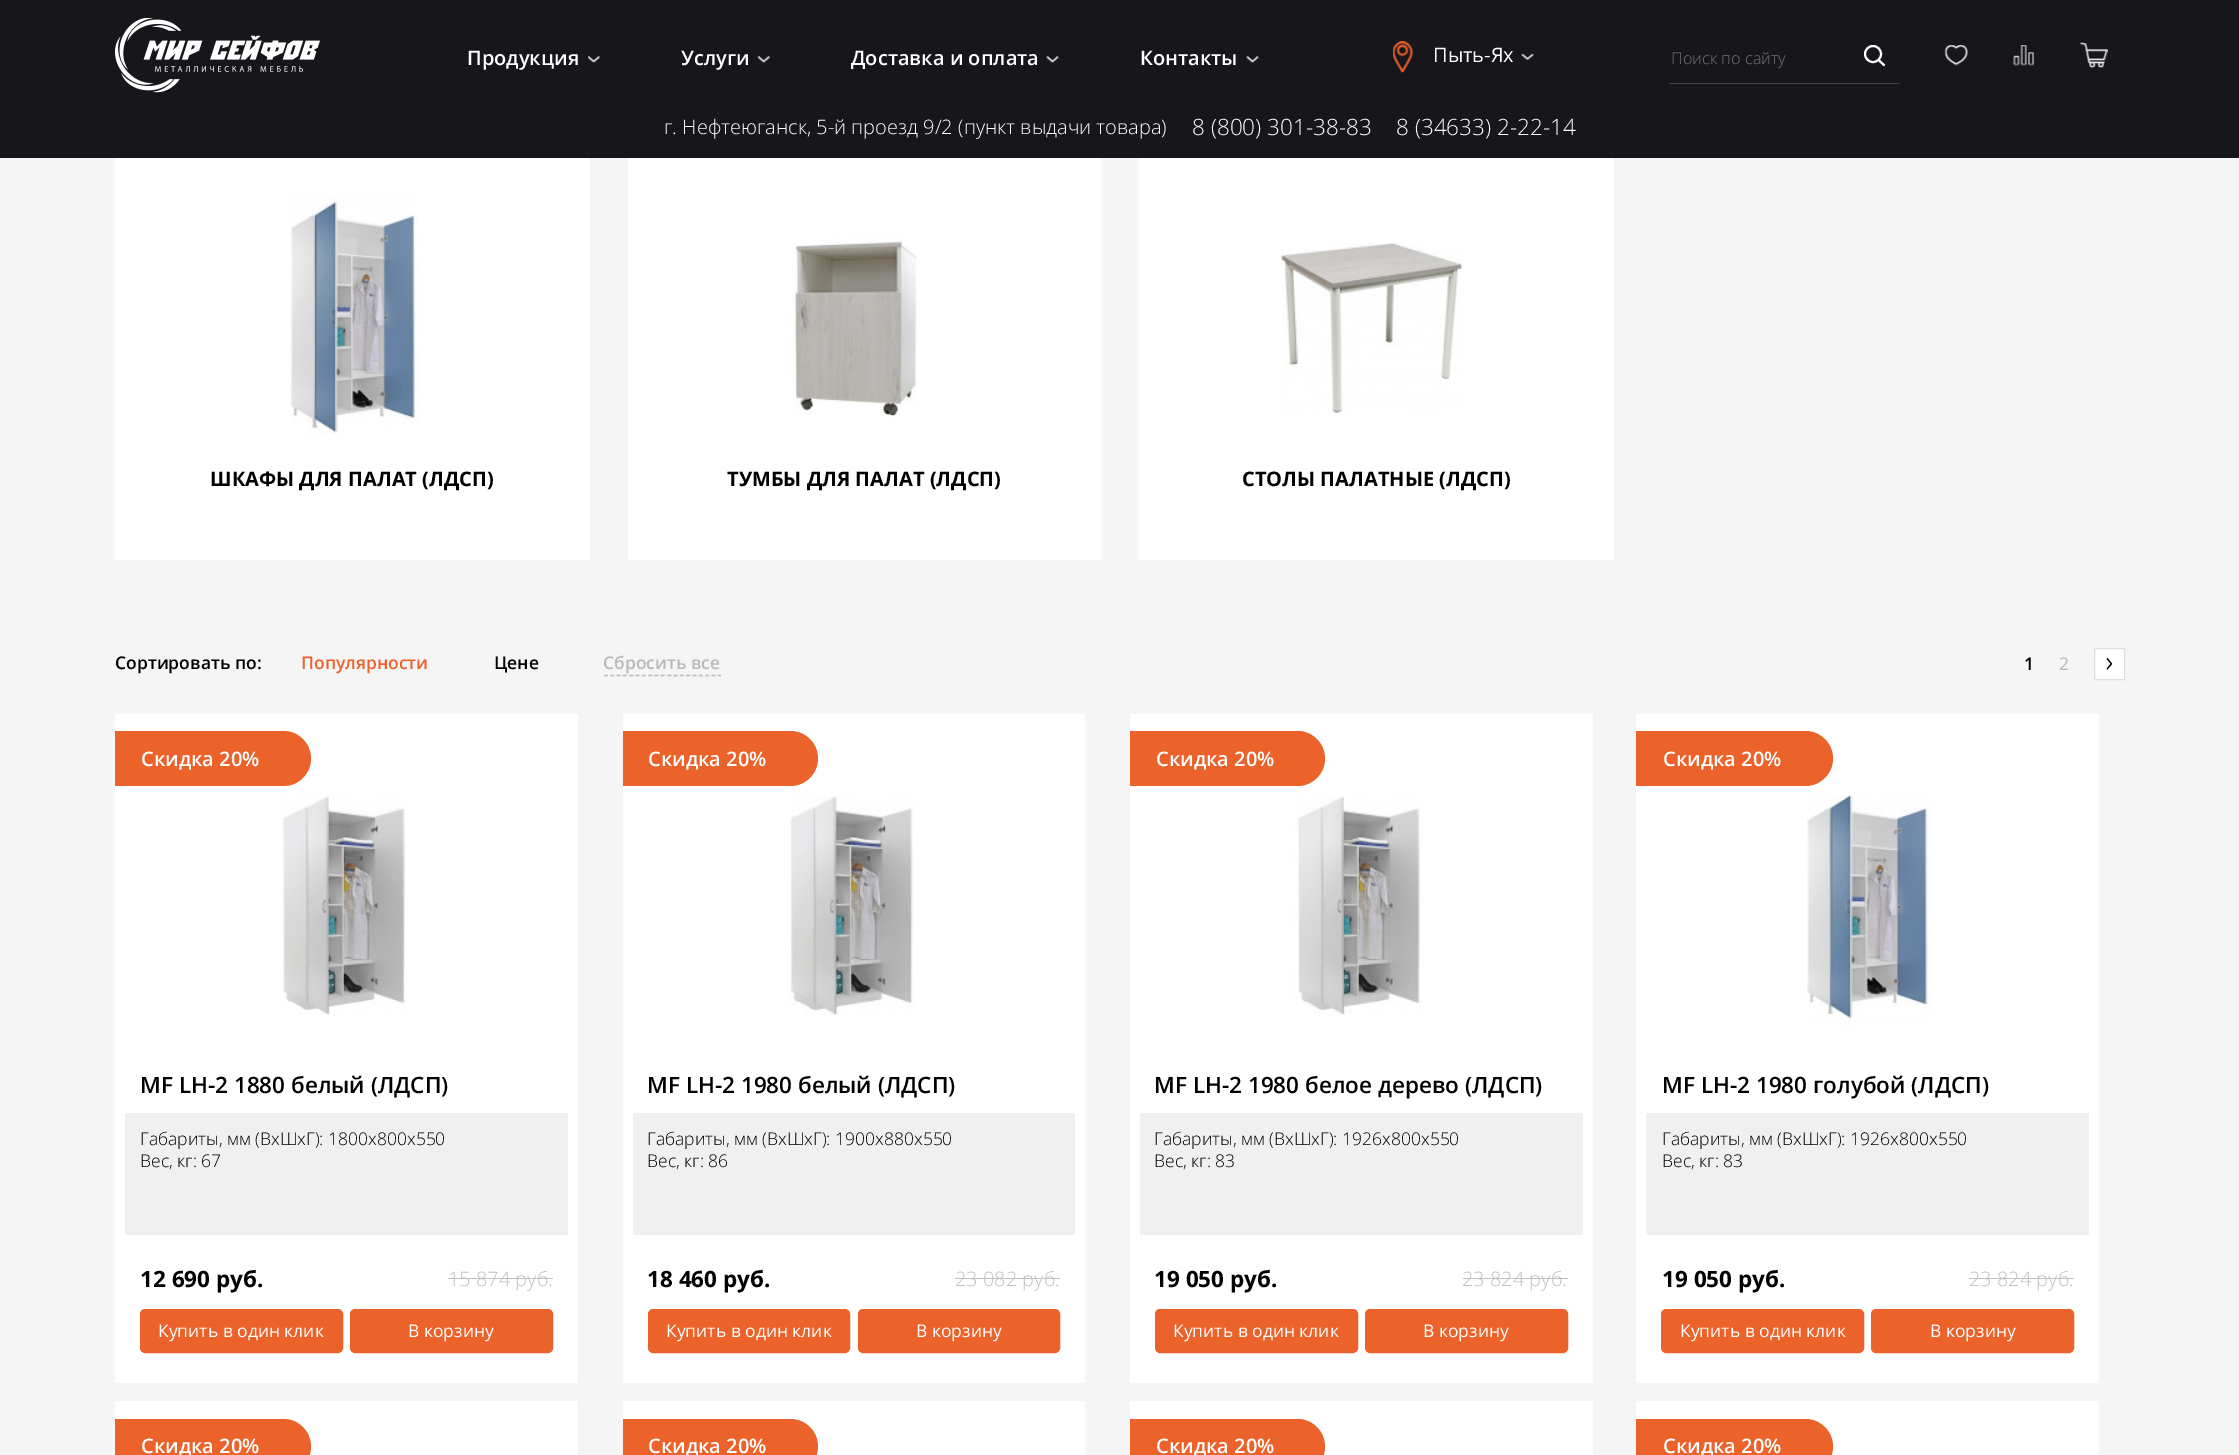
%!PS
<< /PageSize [2239 1455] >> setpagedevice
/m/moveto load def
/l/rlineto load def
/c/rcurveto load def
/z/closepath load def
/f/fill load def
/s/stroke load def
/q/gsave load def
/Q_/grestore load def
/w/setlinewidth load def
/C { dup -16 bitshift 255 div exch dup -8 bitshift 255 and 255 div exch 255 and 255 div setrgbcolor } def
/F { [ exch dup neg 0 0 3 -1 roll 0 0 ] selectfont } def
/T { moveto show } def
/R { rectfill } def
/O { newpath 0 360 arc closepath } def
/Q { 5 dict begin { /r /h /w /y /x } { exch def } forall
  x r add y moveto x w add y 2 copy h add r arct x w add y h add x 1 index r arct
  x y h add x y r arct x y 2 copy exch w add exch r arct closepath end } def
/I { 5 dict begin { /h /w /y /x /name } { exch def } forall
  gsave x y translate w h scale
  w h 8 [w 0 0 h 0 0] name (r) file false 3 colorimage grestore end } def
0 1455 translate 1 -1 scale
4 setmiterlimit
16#F5F5F5 C
0 0 2239 1455 R
16#17161B C
0 0 2239 158 R
(1.rgb) 115 18 205 75 I
/OpenSans-SemiBold 20 F
16#FFFFFF C
(Продукция) 467 65 T
(2.rgb) 588 56 12 7 I
(Услуги) 681 65 T
(3.rgb) 757 56 13 7 I
(Доставка и оплата) 851 65 T
(4.rgb) 1046 56 13 7 I
(Контакты) 1140 65 T
(4.rgb) 1246 56 13 7 I
(5.rgb) 1393 41 20 32 I
/OpenSans-Regular 20 F
(Пыть-Ях) 1433 62 T
(6.rgb) 1521 53 13 8 I
16#424242 C
1669 83 231 1 R
/OpenSans-Light 16.25 F
16#757575 C
(Поиск по сайту) 1671 64 T
16#FFFFFF C
2 w
1873 54 8 O s
1884.5 65.5 m -6 -5.5 l s
(7.rgb) 1944 45 24 21 I
(8.rgb) 2013 45 22 21 I
(9.rgb) 2080 42 28 26 I
/OpenSans-Light 20 F
(г. Нефтеюганск, 5-й проезд 9/2 \(пункт выдачи товара\)) 664 134 T
/OpenSans-Light 22.5 F
(8 \(800\) 301-38-83) 1192 135 T
(8 \(34633\) 2-22-14) 1396 135 T
115 158 475 402 R
(10.rgb) 289 195 129 240 I
/OpenSans-Bold 20 F
16#000000 C
(ШКАФЫ ДЛЯ ПАЛАТ \(ЛДСП\)) 210 486 T
16#FFFFFF C
628 158 473 402 R
(11.rgb) 793 235 124 182 I
16#000000 C
(ТУМБЫ ДЛЯ ПАЛАТ \(ЛДСП\)) 727 486 T
16#FFFFFF C
1139 158 475 402 R
(12.rgb) 1281 243 182 170 I
16#000000 C
(СТОЛЫ ПАЛАТНЫЕ \(ЛДСП\)) 1242 486 T
/OpenSans-SemiBold 17.5 F
(Сортировать по:) 115 669 T
16#EB622B C
(Популярности) 301 669 T
16#000000 C
(Цене) 494 669 T
16#B9B9B9 C
1.2 w
[3.75 2.58] 0 setdash
604 675.5 m 117 0 l s
(Сбросить все) 603 669 T
16#000000 C
(1) 2024 670 T
/OpenSans-Regular 17.5 F
16#B9B9B9 C
(2) 2059 670 T
16#FFFFFF C
2094.5 648.5 m 30 0 l 0 31 l -30 0 l z q f Q_
16#DFDFDF C
1 w
[] 0 setdash
s
(13.rgb) 2106 658 7 12 I
16#FFFFFF C
115 714 463 669 R
16#EB622B C
115 731 m 168.5 0 l 15 0 27.5 12.5 27.5 27.5 c 0 15 -12.5 27.5 -27.5 27.5 c -168.5 0 l z f
/OpenSans-SemiBold 20 F
16#FFFFFF C
(Скидка 20%) 141 766 T
(14.rgb) 279 796 127 219 I
/OpenSans-SemiBold 22.5 F
16#000000 C
(MF LH-2 1880 белый \(ЛДСП\)) 140 1093 T
16#F0F0F0 C
125 1113 443 122 R
/OpenSans-Light 17.5 F
16#000000 C
(Габариты, мм \(ВхШхГ\): 1800x800x550) 140 1145 T
(Вес, кг: 67) 140 1167 T
/OpenSans-Bold 22.5 F
(12 690 руб.) 140 1287 T
/OpenSans-Light 20 F
16#C1C1C1 C
(15 874 руб.) 448 1286 T
448 1278 105 1 R
16#EB622B C
140.5 1309.5 202 43 4.5 Q q f Q_
s
/OpenSans-Regular 17.5 F
16#FFFFFF C
(Купить в один клик) 158 1337 T
16#EB622B C
350.5 1309.5 202 43 4.5 Q q f Q_
s
16#FFFFFF C
(В корзину) 408 1337 T
623 714 462 669 R
16#EB622B C
623 731 m 167.5 0 l 15 0 27.5 12.5 27.5 27.5 c 0 15 -12.5 27.5 -27.5 27.5 c -167.5 0 l z f
/OpenSans-SemiBold 20 F
16#FFFFFF C
(Скидка 20%) 648 766 T
(15.rgb) 790 796 125 219 I
/OpenSans-SemiBold 22.5 F
16#000000 C
(MF LH-2 1980 белый \(ЛДСП\)) 647 1093 T
16#F0F0F0 C
633 1113 442 122 R
/OpenSans-Light 17.5 F
16#000000 C
(Габариты, мм \(ВхШхГ\): 1900x880x550) 647 1145 T
(Вес, кг: 86) 647 1167 T
/OpenSans-Bold 22.5 F
(18 460 руб.) 647 1287 T
/OpenSans-Light 20 F
16#C1C1C1 C
(23 082 руб.) 955 1286 T
955 1278 105 1 R
16#EB622B C
648.5 1309.5 201 43 4.5 Q q f Q_
s
/OpenSans-Regular 17.5 F
16#FFFFFF C
(Купить в один клик) 666 1337 T
16#EB622B C
858.5 1309.5 201 43 4.5 Q q f Q_
s
16#FFFFFF C
(В корзину) 916 1337 T
1130 714 463 669 R
16#EB622B C
1130 731 m 167.5 0 l 15 0 27.5 12.5 27.5 27.5 c 0 15 -12.5 27.5 -27.5 27.5 c -167.5 0 l z f
/OpenSans-SemiBold 20 F
16#FFFFFF C
(Скидка 20%) 1156 766 T
(16.rgb) 1294 796 127 219 I
/OpenSans-SemiBold 22.5 F
16#000000 C
(MF LH-2 1980 белое дерево \(ЛДСП\)) 1154 1093 T
16#F0F0F0 C
1140 1113 443 122 R
/OpenSans-Light 17.5 F
16#000000 C
(Габариты, мм \(ВхШхГ\): 1926x800x550) 1154 1145 T
(Вес, кг: 83) 1154 1167 T
/OpenSans-Bold 22.5 F
(19 050 руб.) 1154 1287 T
/OpenSans-Light 20 F
16#C1C1C1 C
(23 824 руб.) 1462 1286 T
1463 1278 105 1 R
16#EB622B C
1155.5 1309.5 202 43 4.5 Q q f Q_
s
/OpenSans-Regular 17.5 F
16#FFFFFF C
(Купить в один клик) 1173 1337 T
16#EB622B C
1365.5 1309.5 202 43 4.5 Q q f Q_
s
16#FFFFFF C
(В корзину) 1423 1337 T
1636 714 463 669 R
16#EB622B C
1636 731 m 169.5 0 l 15 0 27.5 12.5 27.5 27.5 c 0 15 -12.5 27.5 -27.5 27.5 c -169.5 0 l z f
/OpenSans-SemiBold 20 F
16#FFFFFF C
(Скидка 20%) 1663 766 T
(17.rgb) 1807 794 124 232 I
/OpenSans-SemiBold 22.5 F
16#000000 C
(MF LH-2 1980 голубой \(ЛДСП\)) 1662 1093 T
16#F0F0F0 C
1646 1113 443 122 R
/OpenSans-Light 17.5 F
16#000000 C
(Габариты, мм \(ВхШхГ\): 1926x800x550) 1662 1145 T
(Вес, кг: 83) 1662 1167 T
/OpenSans-Bold 22.5 F
(19 050 руб.) 1662 1287 T
/OpenSans-Light 20 F
16#C1C1C1 C
(23 824 руб.) 1969 1286 T
1969 1278 105 1 R
16#EB622B C
1661.5 1309.5 202 43 4.5 Q q f Q_
s
/OpenSans-Regular 17.5 F
16#FFFFFF C
(Купить в один клик) 1680 1337 T
16#EB622B C
1871.5 1309.5 202 43 4.5 Q q f Q_
s
16#FFFFFF C
(В корзину) 1930 1337 T
115 1401 463 54 R
16#EB622B C
115 1419 m 168.5 0 l 15 0 27.5 12.5 27.5 27.5 c 0 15 -12.5 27.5 -27.5 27.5 c -168.5 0 l z f
/OpenSans-SemiBold 20 F
16#FFFFFF C
(Скидка 20%) 141 1453 T
623 1401 462 54 R
16#EB622B C
623 1419 m 167.5 0 l 15 0 27.5 12.5 27.5 27.5 c 0 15 -12.5 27.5 -27.5 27.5 c -167.5 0 l z f
16#FFFFFF C
(Скидка 20%) 648 1453 T
1130 1401 463 54 R
16#EB622B C
1130 1419 m 167.5 0 l 15 0 27.5 12.5 27.5 27.5 c 0 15 -12.5 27.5 -27.5 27.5 c -167.5 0 l z f
16#FFFFFF C
(Скидка 20%) 1156 1453 T
1636 1401 463 54 R
16#EB622B C
1636 1419 m 169.5 0 l 15 0 27.5 12.5 27.5 27.5 c 0 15 -12.5 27.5 -27.5 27.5 c -169.5 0 l z f
16#FFFFFF C
(Скидка 20%) 1663 1453 T
showpage
